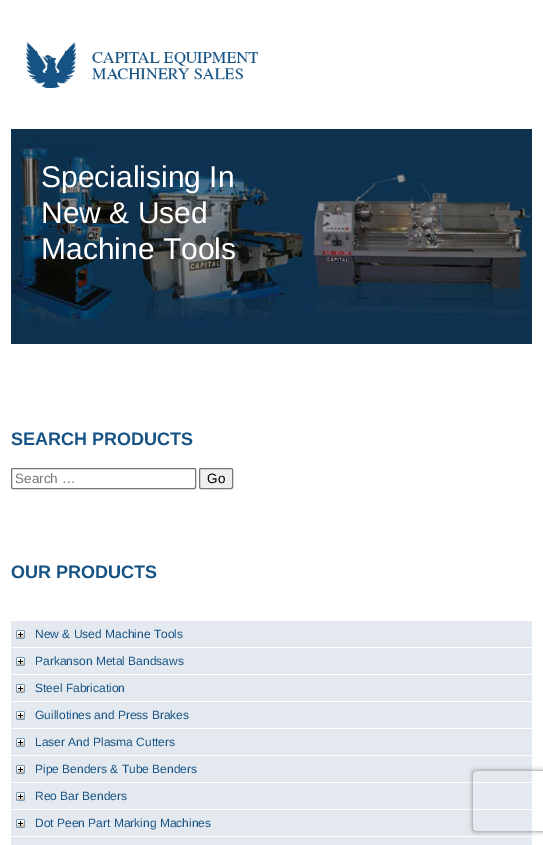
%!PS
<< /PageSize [543 845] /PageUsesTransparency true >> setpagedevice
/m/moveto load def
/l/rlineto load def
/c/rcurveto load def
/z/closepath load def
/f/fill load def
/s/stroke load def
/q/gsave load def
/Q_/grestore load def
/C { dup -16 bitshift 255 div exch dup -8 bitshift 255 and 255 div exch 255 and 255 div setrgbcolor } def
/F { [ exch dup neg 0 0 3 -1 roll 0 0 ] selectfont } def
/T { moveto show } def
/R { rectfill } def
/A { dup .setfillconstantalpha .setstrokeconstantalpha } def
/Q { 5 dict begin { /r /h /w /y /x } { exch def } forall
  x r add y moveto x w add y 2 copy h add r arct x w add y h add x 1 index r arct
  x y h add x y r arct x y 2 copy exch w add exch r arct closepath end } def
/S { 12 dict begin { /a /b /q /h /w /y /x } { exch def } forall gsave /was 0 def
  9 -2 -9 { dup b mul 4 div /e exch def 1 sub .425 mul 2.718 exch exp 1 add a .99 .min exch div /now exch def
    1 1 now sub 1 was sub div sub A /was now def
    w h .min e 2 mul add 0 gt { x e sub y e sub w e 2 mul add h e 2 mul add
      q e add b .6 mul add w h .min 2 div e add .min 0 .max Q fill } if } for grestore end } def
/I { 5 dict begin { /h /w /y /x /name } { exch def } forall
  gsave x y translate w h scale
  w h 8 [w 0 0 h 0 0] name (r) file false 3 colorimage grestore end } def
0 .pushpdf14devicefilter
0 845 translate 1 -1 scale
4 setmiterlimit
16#FFFFFF C
0 0 543 845 R
(1.rgb) 26 42 232 46 I
16#0D324F C
11 129 521 215 R
(2.rgb) 11 141 521 190 I
/LiberationSans-Regular 30 F
16#FFFFFF C
(Specialising In) 41 187 T
(New & Used) 41 223 T
(Machine Tools) 41 259 T
/LiberationSans-Bold 18 F
16#165384 C
(SEARCH PRODUCTS) 11 445 T
16#767676 C
11.5 468.5 184 20 1.5 Q s
/LiberationSans-Regular 13.5 F
16#757575 C
(Search …) 15 483 T
16#EFEFEF C
199.5 468.5 33 20 1.5 Q q f Q_
16#767676 C
s
16#000000 C
(Go) 207 483 T
/LiberationSans-Bold 18 F
16#165384 C
(OUR PRODUCTS) 11 578 T
16#E4E9EF C
11 621 521 26 R
(3.rgb) 16 630 9 9 I
/LiberationSans-Regular 12 F
16#165384 C
(New & Used Machine Tools) 35 638 T
16#E4E9EF C
11 648 521 26 R
(3.rgb) 16 657 9 9 I
16#165384 C
(Parkanson Metal Bandsaws) 35 665 T
16#E4E9EF C
11 675 521 26 R
(3.rgb) 16 684 9 9 I
16#165384 C
(Steel Fabrication) 35 692 T
16#E4E9EF C
11 702 521 26 R
(3.rgb) 16 711 9 9 I
16#165384 C
(Guillotines and Press Brakes) 35 719 T
16#E4E9EF C
11 729 521 26 R
(3.rgb) 16 738 9 9 I
16#165384 C
(Laser And Plasma Cutters) 35 746 T
16#E4E9EF C
11 756 521 26 R
(3.rgb) 16 765 9 9 I
16#165384 C
(Pipe Benders & Tube Benders) 35 773 T
16#E4E9EF C
11 783 521 26 R
(3.rgb) 16 792 9 9 I
16#165384 C
(Reo Bar Benders) 35 800 T
16#E4E9EF C
11 810 521 26 R
(3.rgb) 16 819 9 9 I
16#165384 C
(Dot Peen Part Marking Machines) 35 827 T
16#E4E9EF C
11 837 521 8 R
q
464 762 m 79 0 l 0 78 l -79 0 l z 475 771 m 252 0 l 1 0 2 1 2 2 c 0 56 l 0 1 -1 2 -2 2 c -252 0 l -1 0 -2 -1 -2 -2 c 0 -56 l 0 -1 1 -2 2 -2 c z eoclip newpath
16#808080 C
473 771 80 60 2 2.5 1 S
Q_
.poppdf14devicefilter showpage
